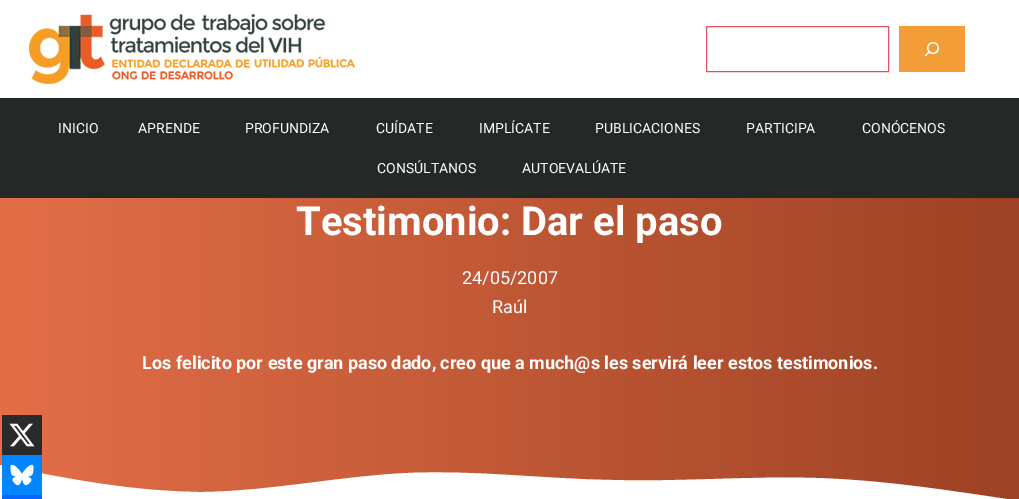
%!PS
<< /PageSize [1019 499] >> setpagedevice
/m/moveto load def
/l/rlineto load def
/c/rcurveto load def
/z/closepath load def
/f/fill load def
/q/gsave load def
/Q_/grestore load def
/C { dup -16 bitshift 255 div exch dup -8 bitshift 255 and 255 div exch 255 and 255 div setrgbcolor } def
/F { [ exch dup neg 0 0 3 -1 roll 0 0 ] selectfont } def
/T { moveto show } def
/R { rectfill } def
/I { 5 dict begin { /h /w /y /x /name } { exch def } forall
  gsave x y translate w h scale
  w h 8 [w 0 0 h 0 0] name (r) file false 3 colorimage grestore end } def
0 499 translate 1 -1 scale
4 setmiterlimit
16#FFFFFF C
0 0 1019 499 R
(1.rgb) 29 14 326 70 I
16#DB5461 C
706.5 26.5 182 45 rectstroke
16#F29D38 C
899 26 66 46 R
(2.rgb) 924 42 16 15 I
16#242928 C
0 98 1019 100 R
/Roboto-Regular 14 F
16#FFFFFF C
(INICIO) 58 133 T
(APRENDE) 138 133 T
(PROFUNDIZA) 245 133 T
(CUÍDATE) 376 133 T
(IMPLÍCATE) 479 133 T
(PUBLICACIONES) 595 133 T
(PARTICIPA) 746 133 T
(CONÓCENOS) 862 133 T
(CONSÚLTANOS) 377 173 T
(AUTOEVALÚATE) 522 173 T
q 0 198 m 1019 0 l 0 301 l -1019 0 l z clip newpath
<< /ShadingType 2 /ColorSpace /DeviceRGB /Coords [0 252 1019 252] /Extend [true true] /Function << /FunctionType 2 /Domain [0 1] /C0 [.89 .435 .282] /C1 [.616 .259 .141] /N 1 >> >> shfill Q_
/Roboto-Bold 40 F
(Testimonio: Dar el paso) 296 235 T
/Roboto-Regular 18 F
(24/05/2007) 462 284 T
(Raúl) 492 313 T
/Roboto-Bold 18 F
(Los felicito por este gran paso dado, creo que a much@s les servirá leer estos testimonios.) 142 369 T
16#2A2A2A C
2 415 40 40 R
(3.rgb) 9 423 26 24 I
16#FFFFFF C
0 465 m 67 14 135 27 204 27 c 68 -1 136 -16 204 -19 c 68 -3 136 6 204 7 c 68 2 136 -4 204 -2 c 69 2 136 13 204 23 c 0 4 l -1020 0 l z f
16#0085FF C
2 455 40 40 R
(4.rgb) 10 464 24 22 I
16#0765FE C
2 495 40 4 R
showpage
